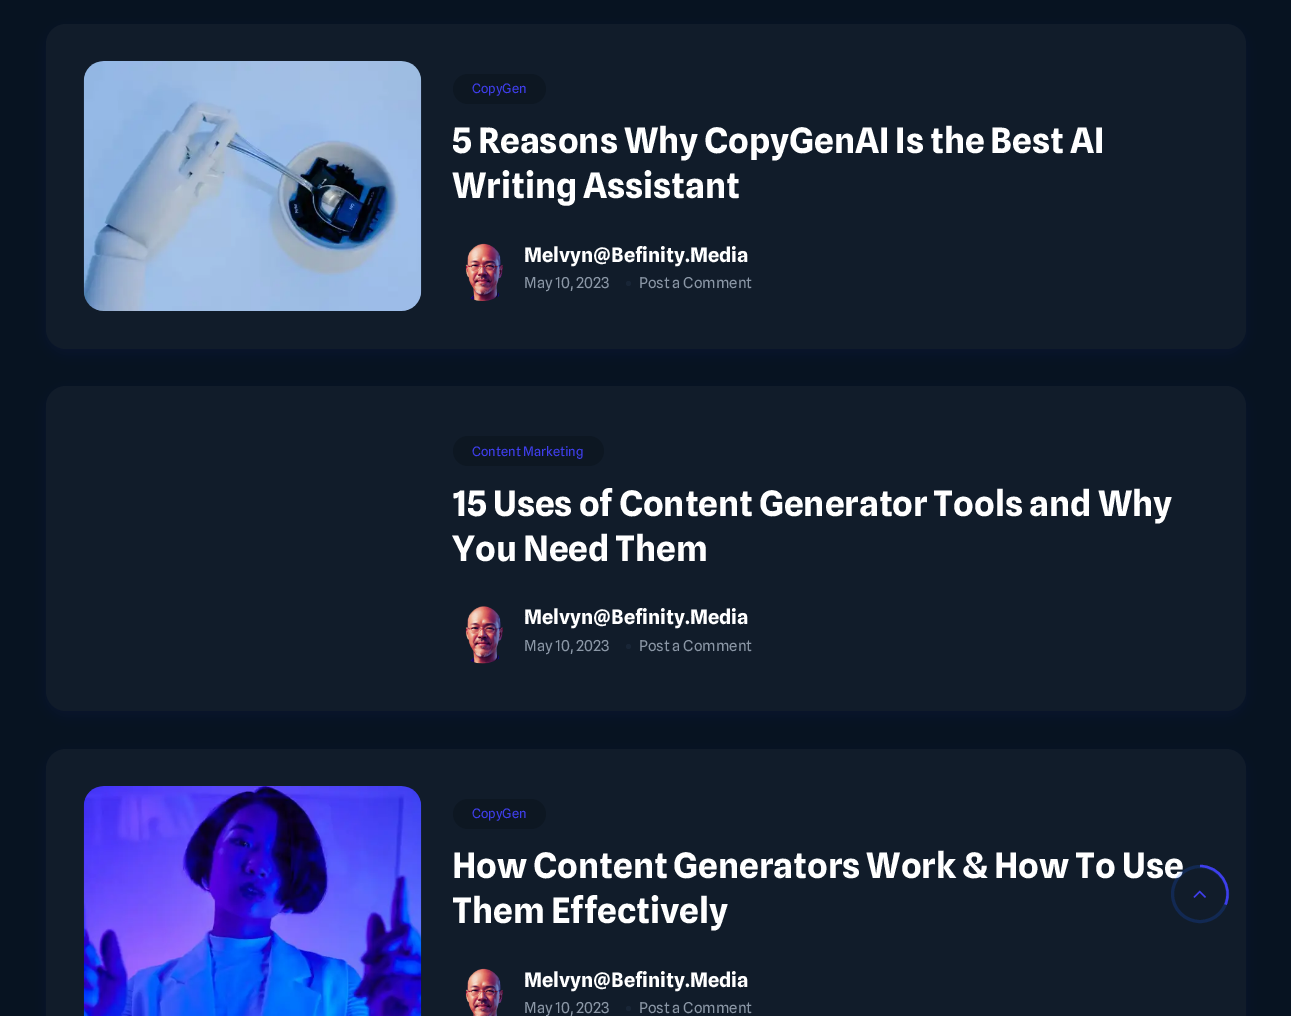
%!PS
<< /PageSize [1291 1016] /PageUsesTransparency true >> setpagedevice
/m/moveto load def
/c/rcurveto load def
/f/fill load def
/s/stroke load def
/w/setlinewidth load def
/C { dup -16 bitshift 255 div exch dup -8 bitshift 255 and 255 div exch 255 and 255 div setrgbcolor } def
/F { [ exch dup neg 0 0 3 -1 roll 0 0 ] selectfont } def
/T { moveto show } def
/R { rectfill } def
/A { dup .setfillconstantalpha .setstrokeconstantalpha } def
/O { newpath 0 360 arc closepath } def
/Q { 5 dict begin { /r /h /w /y /x } { exch def } forall
  x r add y moveto x w add y 2 copy h add r arct x w add y h add x 1 index r arct
  x y h add x y r arct x y 2 copy exch w add exch r arct closepath end } def
/S { 12 dict begin { /a /b /q /h /w /y /x } { exch def } forall gsave /was 0 def
  9 -2 -9 { dup b mul 4 div /e exch def 1 sub .425 mul 2.718 exch exp 1 add a .99 .min exch div /now exch def
    1 1 now sub 1 was sub div sub A /was now def
    w h .min e 2 mul add 0 gt { x e sub y e sub w e 2 mul add h e 2 mul add
      q e add b .6 mul add w h .min 2 div e add .min 0 .max Q fill } if } for grestore end } def
/I { 5 dict begin { /h /w /y /x /name } { exch def } forall
  gsave x y translate w h scale
  w h 8 [w 0 0 h 0 0] name (r) file false 3 colorimage grestore end } def
0 .pushpdf14devicefilter
0 1016 translate 1 -1 scale
4 setmiterlimit
16#071321 C
0 0 1291 1016 R
16#3F3EED C
46 29 1200 325 20 6 .05 S
16#111C2A C
46 24 1200 325 20 Q f
(1.rgb) 83 61 339 250 I
16#0D1722 C
453 74 93 30 15 Q f
/SplineSans-Regular 13 F
16#3F3EED C
(CopyGen) 472 93 T
/SplineSans-Bold 35 F
16#FFFFFF C
(5 Reasons Why CopyGenAI Is the Best AI) 452 153 T
(Writing Assistant) 452 198 T
(2.rgb) 465 243 38 58 I
/SplineSans-Bold 20 F
(Melvyn@Befinity.Media) 524 262 T
/SplineSans-Regular 15 F
16#8B97A6 C
(May 10, 2023) 524 288 T
16#182536 C
628.5 283.5 2.5 O f
16#8B97A6 C
(Post a Comment) 639 288 T
16#3F3EED C
46 391 1200 325 20 6 .05 S
16#111C2A C
46 386 1200 325 20 Q f
16#0D1722 C
453 436 151 30 15 Q f
/SplineSans-Regular 13 F
16#3F3EED C
(Content Marketing) 472 456 T
/SplineSans-Bold 35 F
16#FFFFFF C
(15 Uses of Content Generator Tools and Why) 452 516 T
(You Need Them) 452 561 T
(3.rgb) 465 606 38 58 I
/SplineSans-Bold 20 F
(Melvyn@Befinity.Media) 524 624 T
/SplineSans-Regular 15 F
16#8B97A6 C
(May 10, 2023) 524 651 T
16#182536 C
628.5 646.5 2.5 O f
16#8B97A6 C
(Post a Comment) 639 651 T
16#3F3EED C
46 754 1200 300 20 6 .05 S
16#111C2A C
46 749 1200 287 20 Q f
(4.rgb) 83 786 339 230 I
16#0D1722 C
453 799 93 30 15 Q f
/SplineSans-Regular 13 F
16#3F3EED C
(CopyGen) 472 818 T
/SplineSans-Bold 35 F
16#FFFFFF C
(How Content Generators Work & How To Use) 452 878 T
(Them Effectively) 452 923 T
(5.rgb) 465 968 38 48 I
/SplineSans-Bold 20 F
(Melvyn@Befinity.Media) 524 987 T
/SplineSans-Regular 15 F
16#8B97A6 C
(May 10, 2023) 524 1013 T
16#182536 C
628.5 1008.5 2.5 O f
16#8B97A6 C
(Post a Comment) 639 1013 T
0.2 A
16#165DF5 C
3 w
1200 894 27.5 O s
1 A
16#3F3EED C
2.3 w
1200 866 m 20 0 33 20.5 25.5 38.5 c s
(6.rgb) 1193 890 13 8 I
.poppdf14devicefilter showpage
